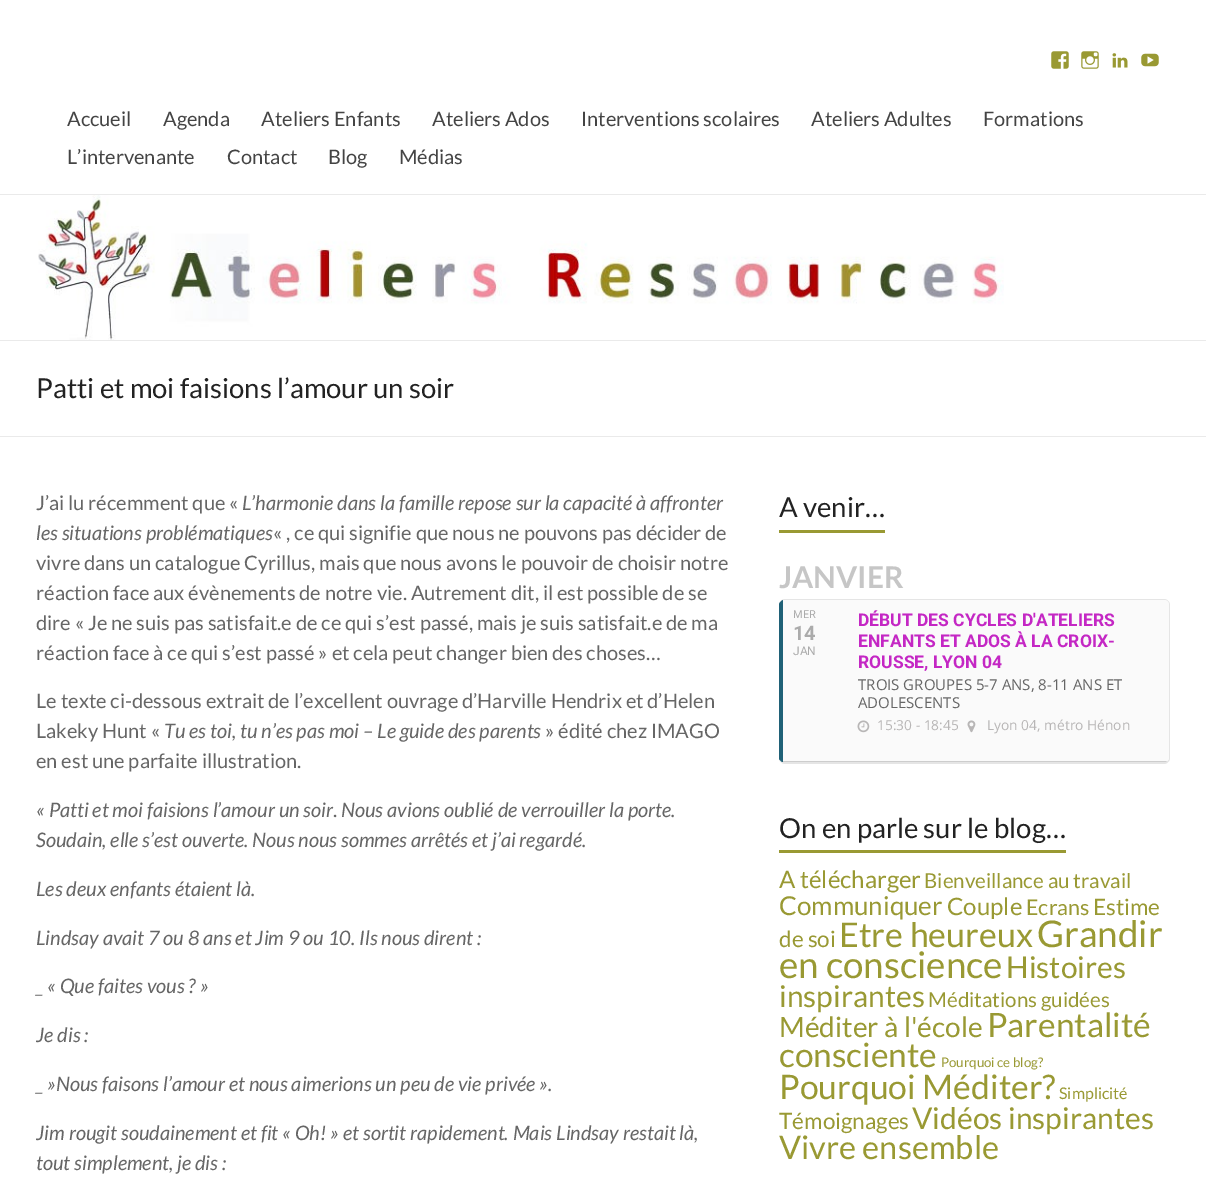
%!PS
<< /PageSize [1206 1187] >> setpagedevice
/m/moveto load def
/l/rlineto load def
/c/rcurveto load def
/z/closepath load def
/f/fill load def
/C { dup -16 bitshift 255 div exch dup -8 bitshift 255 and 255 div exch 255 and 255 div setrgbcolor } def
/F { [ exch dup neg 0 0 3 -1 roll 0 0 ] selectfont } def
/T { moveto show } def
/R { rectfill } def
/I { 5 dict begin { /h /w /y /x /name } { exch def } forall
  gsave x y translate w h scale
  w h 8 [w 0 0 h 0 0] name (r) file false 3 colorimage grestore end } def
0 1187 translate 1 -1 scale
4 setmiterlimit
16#FFFFFF C
0 0 1206 1187 R
16#EAEAEA C
0 194 1206 1 R
(1.rgb) 1051 51 18 18 I
(2.rgb) 1081 51 18 18 I
(3.rgb) 1112 53 16 15 I
(4.rgb) 1141 53 18 14 I
/Lato-Regular 20 F
16#444444 C
(Accueil) 67 126 T
(Agenda) 163 126 T
(Ateliers Enfants) 261 126 T
(Ateliers Ados) 432 126 T
(Interventions scolaires) 581 126 T
(Ateliers Adultes) 811 126 T
(Formations) 983 126 T
(L’intervenante) 67 164 T
(Contact) 227 164 T
(Blog) 328 164 T
(Médias) 399 164 T
(5.rgb) 38 195 966 145 I
16#EAEAEA C
0 340 1206 1 R
0 436 1206 1 R
/Lato-Regular 27.5 F
16#222222 C
(Patti et moi faisions l’amour un soir) 36 398 T
/Lato-Regular 20 F
16#666666 C
(J’ai lu récemment que «) 36 510 T
/Lato-Italic 20 F
(L’harmonie dans la famille repose sur la capacité à affronter) 242 510 T
(les situations problématiques) 36 540 T
/Lato-Regular 20 F
(« , ce qui signifie que nous ne pouvons pas décider de) 273 540 T
(vivre dans un catalogue Cyrillus, mais que nous avons le pouvoir de choisir notre) 36 570 T
(réaction face aux évènements de notre vie. Autrement dit, il est possible de se) 36 600 T
(dire « Je ne suis pas satisfait.e de ce qui s’est passé, mais je suis satisfait.e de ma) 36 630 T
(réaction face à ce qui s’est passé » et cela peut changer bien des choses…) 36 660 T
(Le texte ci-dessous extrait de l’excellent ouvrage d’Harville Hendrix et d’Helen) 36 708 T
(Lakeky Hunt «) 36 738 T
/Lato-Italic 20 F
(Tu es toi, tu n’es pas moi – Le guide des parents) 164 738 T
/Lato-Regular 20 F
(» édité chez IMAGO) 545 738 T
(en est une parfaite illustration.) 36 768 T
/Lato-Italic 20 F
(« Patti et moi faisions l’amour un soir) 36 817 T
/Lato-Regular 20 F
(.) 333 817 T
/Lato-Italic 20 F
(Nous avions oublié de verrouiller la porte.) 341 817 T
(Soudain, elle s’est ouverte. Nous nous sommes arrêtés et j’ai regardé.) 36 847 T
(Les deux enfants étaient là.) 36 896 T
(Lindsay avait 7 ou 8 ans et Jim 9 ou 10. Ils nous dirent :) 36 945 T
(_ « Que faites vous ? ») 36 993 T
(Je dis :) 36 1042 T
(_ »Nous faisons l’amour et nous aimerions un peu de vie privée ».) 36 1091 T
(Jim rougit soudainement et fit « Oh! » et sortit rapidement. Mais Lindsay restait là,) 36 1140 T
(tout simplement, je dis :) 36 1170 T
/Lato-Regular 27.5 F
16#222222 C
(A venir…) 779 517 T
16#999933 C
779 530 106 3 R
/Lato-Bold 30 F
16#C6C6C6 C
(JANVIER) 779 588 T
16#E5E5E5 C
785 599 m 379 0 l 3 0 6 3 6 6 c 0 153 l 0 3 -3 6 -6 6 c -379 0 l -3 0 -6 -3 -6 -6 c 0 -153 l 0 -3 3 -6 6 -6 c z 785 600 m 379 0 l 3 0 5 2 5 5 c 0 153 l 0 2 -2 4 -5 4 c -379 0 l -3 0 -6 -2 -6 -4 c 0 -153 l 0 -3 3 -5 6 -5 c z eofill
16#FAFAFA C
785 600 m -3 0 -5 2 -6 4 c 0 155 l 1 2 3 3 6 3 c 379 0 l 3 0 5 -2 5 -4 c 0 -153 l 0 -3 -2 -5 -5 -5 c z f
16#206177 C
779 604 m 1 -2 2 -3 4 -4 c 0 162 l -2 0 -3 -2 -4 -3 c z f
/Roboto-Regular 11 F
16#ABABAB C
(MER) 793 618 T
/Roboto-Bold 20 F
(14) 793 640 T
/Roboto-Regular 12 F
(JAN) 793 655 T
/Roboto-Bold 17.5 F
16#C427C4 C
(DÉBUT DES CYCLES D'ATELIERS) 858 626 T
(ENFANTS ET ADOS À LA CROIX-) 858 647 T
(ROUSSE, LYON 04) 858 668 T
/OpenSans-Regular 15 F
16#666666 C
(TROIS GROUPES 5-7 ANS, 8-11 ANS ET) 858 690 T
(ADOLESCENTS) 858 708 T
(6.rgb) 857 720 13 13 I
/OpenSans-Regular 13.75 F
16#B8B6B6 C
(15:30 - 18:45) 877 730 T
(7.rgb) 967 720 9 13 I
(Lyon 04, métro Hénon) 987 730 T
16#CDCDCD C
783 761 m 384 0 l -1 1 l -383 0 l z f
/Lato-Regular 27.5 F
16#222222 C
(On en parle sur le blog…) 779 838 T
16#999933 C
779 850 287 3 R
/Lato-Regular 24 F
(A télécharger) 779 888 T
/Lato-Regular 20.5 F
(Bienveillance au travail) 924 888 T
/Lato-Regular 26 F
(Communiquer) 779 915 T
/Lato-Regular 24 F
(Couple) 947 915 T
/Lato-Regular 21.5 F
(Ecrans) 1026 915 T
/Lato-Regular 22.5 F
(Estime) 1093 915 T
(de soi) 779 947 T
/Lato-Regular 34 F
(Etre heureux) 839 947 T
/Lato-Regular 36.75 F
(Grandir) 1037 947 T
(en conscience) 779 978 T
/Lato-Regular 30 F
(Histoires) 1006 978 T
(inspirantes) 779 1007 T
/Lato-Regular 20.5 F
(Méditations guidées) 928 1007 T
/Lato-Regular 28 F
(Méditer à l'école) 779 1037 T
/Lato-Regular 33.5 F
(Parentalité) 987 1037 T
(consciente) 779 1067 T
/Lato-Regular 13.25 F
(Pourquoi ce blog?) 941 1067 T
/Lato-Regular 33.75 F
(Pourquoi Méditer?) 779 1099 T
/Lato-Regular 16 F
(Simplicité) 1059 1099 T
/Lato-Regular 22.5 F
(Témoignages) 779 1129 T
/Lato-Regular 30 F
(Vidéos inspirantes) 912 1129 T
/Lato-Regular 32.5 F
(Vivre ensemble) 779 1159 T
showpage
